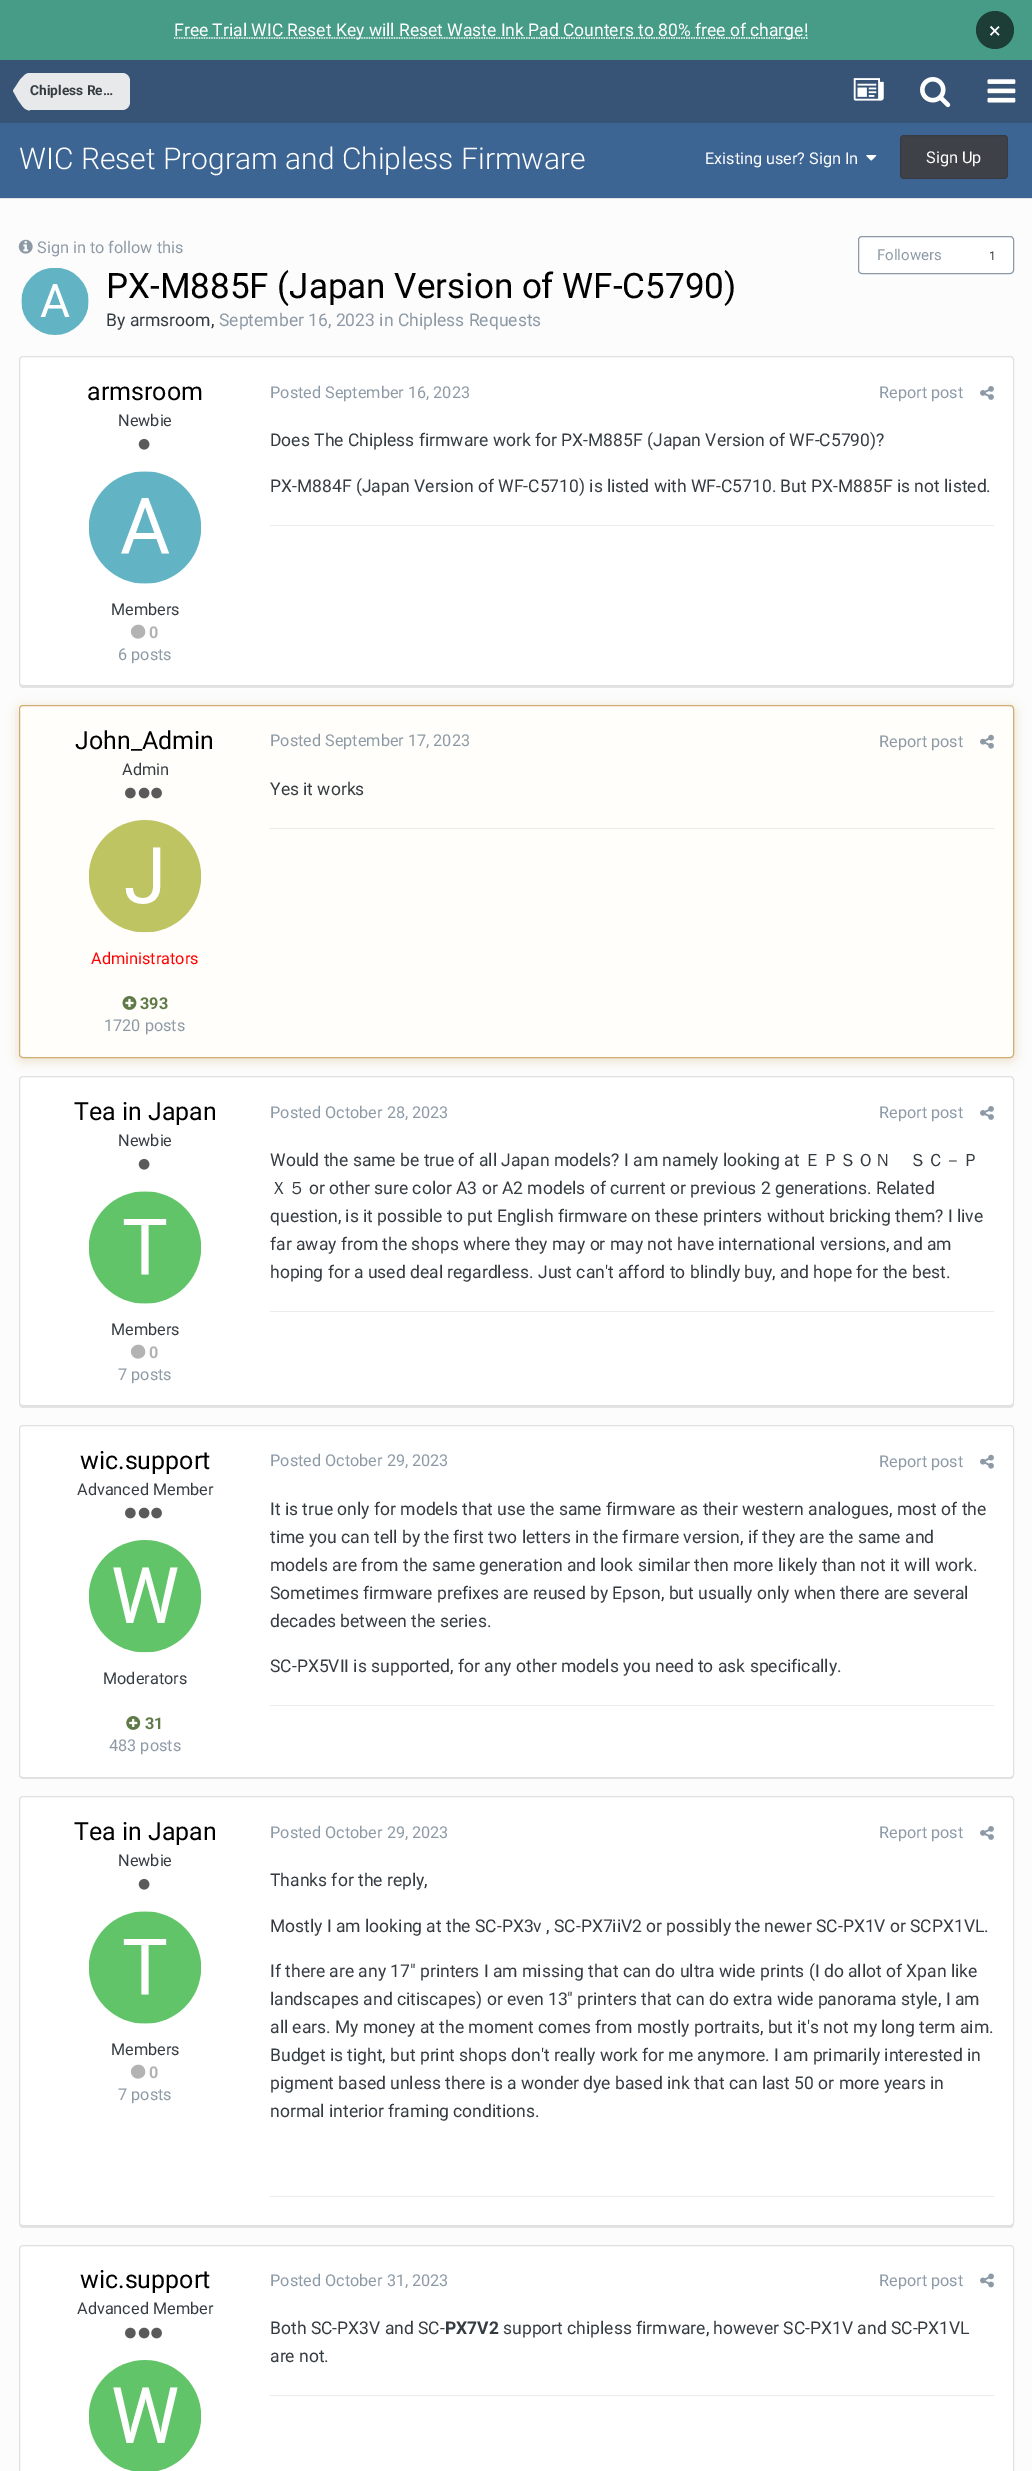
%!PS
<< /PageSize [1032 2471] /PageUsesTransparency true >> setpagedevice
/m/moveto load def
/l/rlineto load def
/c/rcurveto load def
/z/closepath load def
/f/fill load def
/s/stroke load def
/q/gsave load def
/Q_/grestore load def
/w/setlinewidth load def
/C { dup -16 bitshift 255 div exch dup -8 bitshift 255 and 255 div exch 255 and 255 div setrgbcolor } def
/F { [ exch dup neg 0 0 3 -1 roll 0 0 ] selectfont } def
/T { moveto show } def
/R { rectfill } def
/A { dup .setfillconstantalpha .setstrokeconstantalpha } def
/O { newpath 0 360 arc closepath } def
/Q { 5 dict begin { /r /h /w /y /x } { exch def } forall
  x r add y moveto x w add y 2 copy h add r arct x w add y h add x 1 index r arct
  x y h add x y r arct x y 2 copy exch w add exch r arct closepath end } def
/S { 12 dict begin { /a /b /q /h /w /y /x } { exch def } forall gsave /was 0 def
  9 -2 -9 { dup b mul 4 div /e exch def 1 sub .425 mul 2.718 exch exp 1 add a .99 .min exch div /now exch def
    1 1 now sub 1 was sub div sub A /was now def
    w h .min e 2 mul add 0 gt { x e sub y e sub w e 2 mul add h e 2 mul add
      q e add b .6 mul add w h .min 2 div e add .min 0 .max Q fill } if } for grestore end } def
/I { 5 dict begin { /h /w /y /x /name } { exch def } forall
  gsave x y translate w h scale
  w h 8 [w 0 0 h 0 0] name (r) file false 3 colorimage grestore end } def
0 .pushpdf14devicefilter
0 2471 translate 1 -1 scale
4 setmiterlimit
16#FCFCFC C
0 0 1032 2471 R
16#E3E3E3 C
0 198 1032 1 R
16#479C87 C
0 0 1032 60 R
16#FFFFFF C
1.2 w
[1.25 1.25] 0 setdash
174 38 m 634.5 0 l s
/Roboto-Regular 17.5 F
(Free Trial WIC Reset Key will Reset Waste Ink Pad Counters to 80% free of charge!) 174 36 T
16#1C3E36 C
995 30 19 O f
/Roboto-Regular 22 F
16#FFFFFF C
(×) 989 38 T
16#375476 C
0 60 1032 63 R
16#E8E9EB C
30 73 m 92 0 l 4.5 0 8 3.5 8 8 c 0 21 l 0 4.5 -3.5 8 -8 8 c -92 0 l z f
13 91 m 17 0 l 0 19.5 l -2 0 -4.5 -1 -7 -3.5 c -5 -7 l z 30 73 m 0 18 l -17 0 l 0 -.5 l 7.5 -11.5 l 3.5 -3.5 l 1.5 -1.5 3.5 -2.5 6 -2.5 c z f
/Roboto-Bold 13.75 F
16#353C41 C
(Chipless Re…) 30 95 T
(1.rgb) 853 78 31 23 I
(2.rgb) 920 77 31 31 I
(3.rgb) 987 79 29 24 I
16#3D6594 C
0 123 1032 75 R
/Roboto-Light 30 F
16#FFFFFF C
(WIC Reset Program and Chipless Firmware) 19 169 T
/Roboto-Regular 16.25 F
(Existing user? Sign In) 705 164 T
(4.rgb) 866 155 11 6 I
16#3E4148 C
900 135 108 44 4 Q f
0.1 A
16#000000 C
1 w
[] 0 setdash
900.5 135.5 107 43 3.5 Q s
1 A
16#FFFFFF C
(Sign Up) 926 163 T
(5.rgb) 18 239 15 15 I
16#8D9AA6 C
(Sign in to follow this) 37 253 T
16#FFFFFF C
858.5 236.5 155 37 3.5 Q q f Q_
16#8D9AA6 C
s
/Roboto-Regular 15 F
(Followers) 877 260 T
/Roboto-Regular 12 F
16#333333 C
(1) 989 260 T
16#FFFFFF C
21 268 68 67 33.5 Q f
(6.rgb) 21 268 68 67 I
/Roboto-Regular 35 F
16#000000 C
(PX-M885F \(Japan Version of WF-C5790\)) 106 298 T
/Roboto-Regular 17.5 F
16#353C41 C
(By armsroom,) 106 326 T
16#8D9AA6 C
(September 16, 2023 in Chipless Requests) 219 326 T
16#E3E3E3 C
19 684 m 0 2 2 4 4 4 c 987 0 l 2 0 4 -2 4 -4 c 0 -323 l 0 321 l 0 3 -2 4 -4 4 c -988 0 l -1 0 -2 -1 -3 -2 c z f
16#FFFFFF C
19.5 356.5 994 329 3.5 Q q f Q_
16#E0E0E0 C
s
/Roboto-Regular 25 F
16#000000 C
(armsroom) 87 400 T
/Roboto-Regular 16.25 F
16#353C41 C
(Newbie) 118 426 T
(7.rgb) 138 438 12 12 I
(8.rgb) 89 471 112 113 I
(Members) 111 615 T
16#B3B3B3 C
144 628 m 5 8 -7 15 -12 7 c -4.5 -7.5 7.5 -14.5 12 -7 c z f
/Roboto-Bold 16.25 F
(0) 149 638 T
/Roboto-Regular 16.25 F
16#8D9AA6 C
(6 posts) 118 660 T
(Posted September 16, 2023) 270 398 T
(Report post) 879 398 T
(9.rgb) 980 386 14 14 I
/Roboto-Regular 17.5 F
16#353C41 C
(Does The Chipless firmware work for PX-M885F \(Japan Version of WF-C5790\)?) 270 446 T
(PX-M884F \(Japan Version of WF-C5710\) is listed with WF-C5710. But PX-M885F is not listed.) 270 492 T
16#ECECEC C
270 525 724 1 R
16#D0AD71 C
19 708 995 352 4 6 .4 S
16#FFFEFA C
19.5 705.5 994 352 3.5 Q q f Q_
16#D0AD71 C
s
/Roboto-Regular 25 F
16#000000 C
(John_Admin) 75 749 T
/Roboto-Regular 16.25 F
16#353C41 C
(Admin) 122 775 T
(10.rgb) 125 787 11 12 I
(11.rgb) 138 787 12 12 I
(12.rgb) 151 787 11 12 I
16#FFFFFF C
89 820 112 113 56 Q f
(13.rgb) 89 820 112 113 I
16#FF0000 C
(Administrators) 91 964 T
(14.rgb) 122 996 15 14 I
/Roboto-Bold 16.25 F
16#5F7A47 C
(393) 140 1009 T
/Roboto-Regular 16.25 F
16#8D9AA6 C
(1720 posts) 104 1031 T
(Posted September 17, 2023) 270 746 T
(Report post) 879 747 T
(15.rgb) 980 734 14 15 I
/Roboto-Regular 17.5 F
16#353C41 C
(Yes it works) 270 795 T
16#ECEBE7 C
270 828 724 1 R
16#E3E3E3 C
19 1404 m 0 2 2 4 4 4 c 987 0 l 2 0 4 -2 4 -4 c 0 -323 l 0 321 l 0 3 -2 4 -4 4 c -988 0 l -1 0 -2 -1 -3 -2 c z f
16#FFFFFF C
19.5 1076.5 994 329 3.5 Q q f Q_
16#E0E0E0 C
s
/Roboto-Regular 25 F
16#000000 C
(Tea in Japan) 74 1120 T
/Roboto-Regular 16.25 F
16#353C41 C
(Newbie) 118 1146 T
(7.rgb) 138 1158 12 12 I
(16.rgb) 89 1191 112 113 I
(Members) 111 1335 T
16#B3B3B3 C
144 1348 m 5 8 -7 15 -12 7 c -4.5 -7.5 7.5 -14.5 12 -7 c z f
/Roboto-Bold 16.25 F
(0) 149 1358 T
/Roboto-Regular 16.25 F
16#8D9AA6 C
(7 posts) 118 1380 T
(Posted October 28, 2023) 270 1118 T
(Report post) 879 1118 T
(9.rgb) 980 1106 14 14 I
/Roboto-Regular 17.5 F
16#353C41 C
(Would the same be true of all Japan models? I am namely looking at) 270 1166 T
/WenQuanYiZenHei-Medium 17.5 F
(ＥＰＳＯＮ　ＳＣ－Ｐ) 804 1166 T
(Ｘ５) 270 1194 T
/Roboto-Regular 17.5 F
(or other sure color A3 or A2 models of current or previous 2 generations. Related) 309 1194 T
(question, is it possible to put English firmware on these printers without bricking them? I live) 270 1222 T
(far away from the shops where they may or may not have international versions, and am) 270 1250 T
(hoping for a used deal regardless. Just can't afford to blindly buy, and hope for the best.) 270 1278 T
16#ECECEC C
270 1311 724 1 R
16#E3E3E3 C
19 1775 m 0 2 2 4 4 4 c 987 0 l 2 0 4 -2 4 -4 c 0 -346 l 0 345 l 0 2 -2 4 -4 4 c -988 0 l -1 0 -2 -1 -3 -3 c z f
16#FFFFFF C
19.5 1425.5 994 352 3.5 Q q f Q_
16#E0E0E0 C
s
/Roboto-Regular 25 F
16#000000 C
(wic.support) 80 1469 T
/Roboto-Regular 16.25 F
16#353C41 C
(Advanced Member) 77 1495 T
(17.rgb) 125 1507 11 12 I
(18.rgb) 138 1507 12 12 I
(19.rgb) 151 1507 11 12 I
(20.rgb) 89 1540 112 113 I
(Moderators) 103 1684 T
(21.rgb) 126 1716 15 14 I
/Roboto-Bold 16.25 F
16#5F7A47 C
(31) 145 1729 T
/Roboto-Regular 16.25 F
16#8D9AA6 C
(483 posts) 109 1751 T
(Posted October 29, 2023) 270 1466 T
(Report post) 879 1467 T
(22.rgb) 980 1454 14 15 I
/Roboto-Regular 17.5 F
16#353C41 C
(It is true only for models that use the same firmware as their western analogues, most of the) 270 1515 T
(time you can tell by the first two letters in the firmare version, if they are the same and) 270 1543 T
(models are from the same generation and look similar then more likely than not it will work.) 270 1571 T
(Sometimes firmware prefixes are reused by Epson, but usually only when there are several) 270 1599 T
(decades between the series.) 270 1627 T
(SC-PX5VII is supported, for any other models you need to ask specifically.) 270 1672 T
16#ECECEC C
270 1705 724 1 R
16#E3E3E3 C
19 2224 m 0 2 2 4 4 4 c 987 0 l 2 0 4 -2 4 -4 c 0 -423 l 0 421 l 0 3 -2 4 -4 4 c -988 0 l -1 0 -2 -1 -3 -2 c z f
16#FFFFFF C
19.5 1796.5 994 429 3.5 Q q f Q_
16#E0E0E0 C
s
/Roboto-Regular 25 F
16#000000 C
(Tea in Japan) 74 1840 T
/Roboto-Regular 16.25 F
16#353C41 C
(Newbie) 118 1866 T
(7.rgb) 138 1878 12 12 I
(23.rgb) 89 1911 112 113 I
(Members) 111 2055 T
16#B3B3B3 C
144 2068 m 5 8 -7 15 -12 7 c -4.5 -7.5 7.5 -14.5 12 -7 c z f
/Roboto-Bold 16.25 F
(0) 149 2078 T
/Roboto-Regular 16.25 F
16#8D9AA6 C
(7 posts) 118 2100 T
(Posted October 29, 2023) 270 1838 T
(Report post) 879 1838 T
(9.rgb) 980 1826 14 14 I
/Roboto-Regular 17.5 F
16#353C41 C
(Thanks for the reply,) 270 1886 T
(Mostly I am looking at the SC-PX3v , SC-PX7iiV2 or possibly the newer SC-PX1V or SCPX1VL.) 270 1932 T
(If there are any 17" printers I am missing that can do ultra wide prints \(I do allot of Xpan like) 270 1977 T
(landscapes and citiscapes\) or even 13" printers that can do extra wide panorama style, I am) 270 2005 T
(all ears. My money at the moment comes from mostly portraits, but it's not my long term aim.) 270 2033 T
(Budget is tight, but print shops don't really work for me anymore. I am primarily interested in) 270 2061 T
(pigment based unless there is a wonder dye based ink that can last 50 or more years in) 270 2089 T
(normal interior framing conditions.) 270 2117 T
16#ECECEC C
270 2196 724 1 R
16#FFFFFF C
19.5 2245.5 994 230 3.5 Q q f Q_
16#E0E0E0 C
s
/Roboto-Regular 25 F
16#000000 C
(wic.support) 80 2288 T
/Roboto-Regular 16.25 F
16#353C41 C
(Advanced Member) 77 2314 T
(17.rgb) 125 2327 11 12 I
(18.rgb) 138 2327 12 12 I
(19.rgb) 151 2327 11 12 I
(24.rgb) 89 2360 112 111 I
16#8D9AA6 C
(Posted October 31, 2023) 270 2286 T
(Report post) 879 2286 T
(25.rgb) 980 2273 14 15 I
/Roboto-Regular 17.5 F
16#353C41 C
(Both SC-PX3V and SC-) 270 2334 T
/Roboto-Bold 17.5 F
(PX7V2) 445 2334 T
/Roboto-Regular 17.5 F
(support chipless firmware, however SC-PX1V and SC-PX1VL) 503 2334 T
(are not.) 270 2362 T
16#ECECEC C
270 2395 724 1 R
.poppdf14devicefilter showpage
